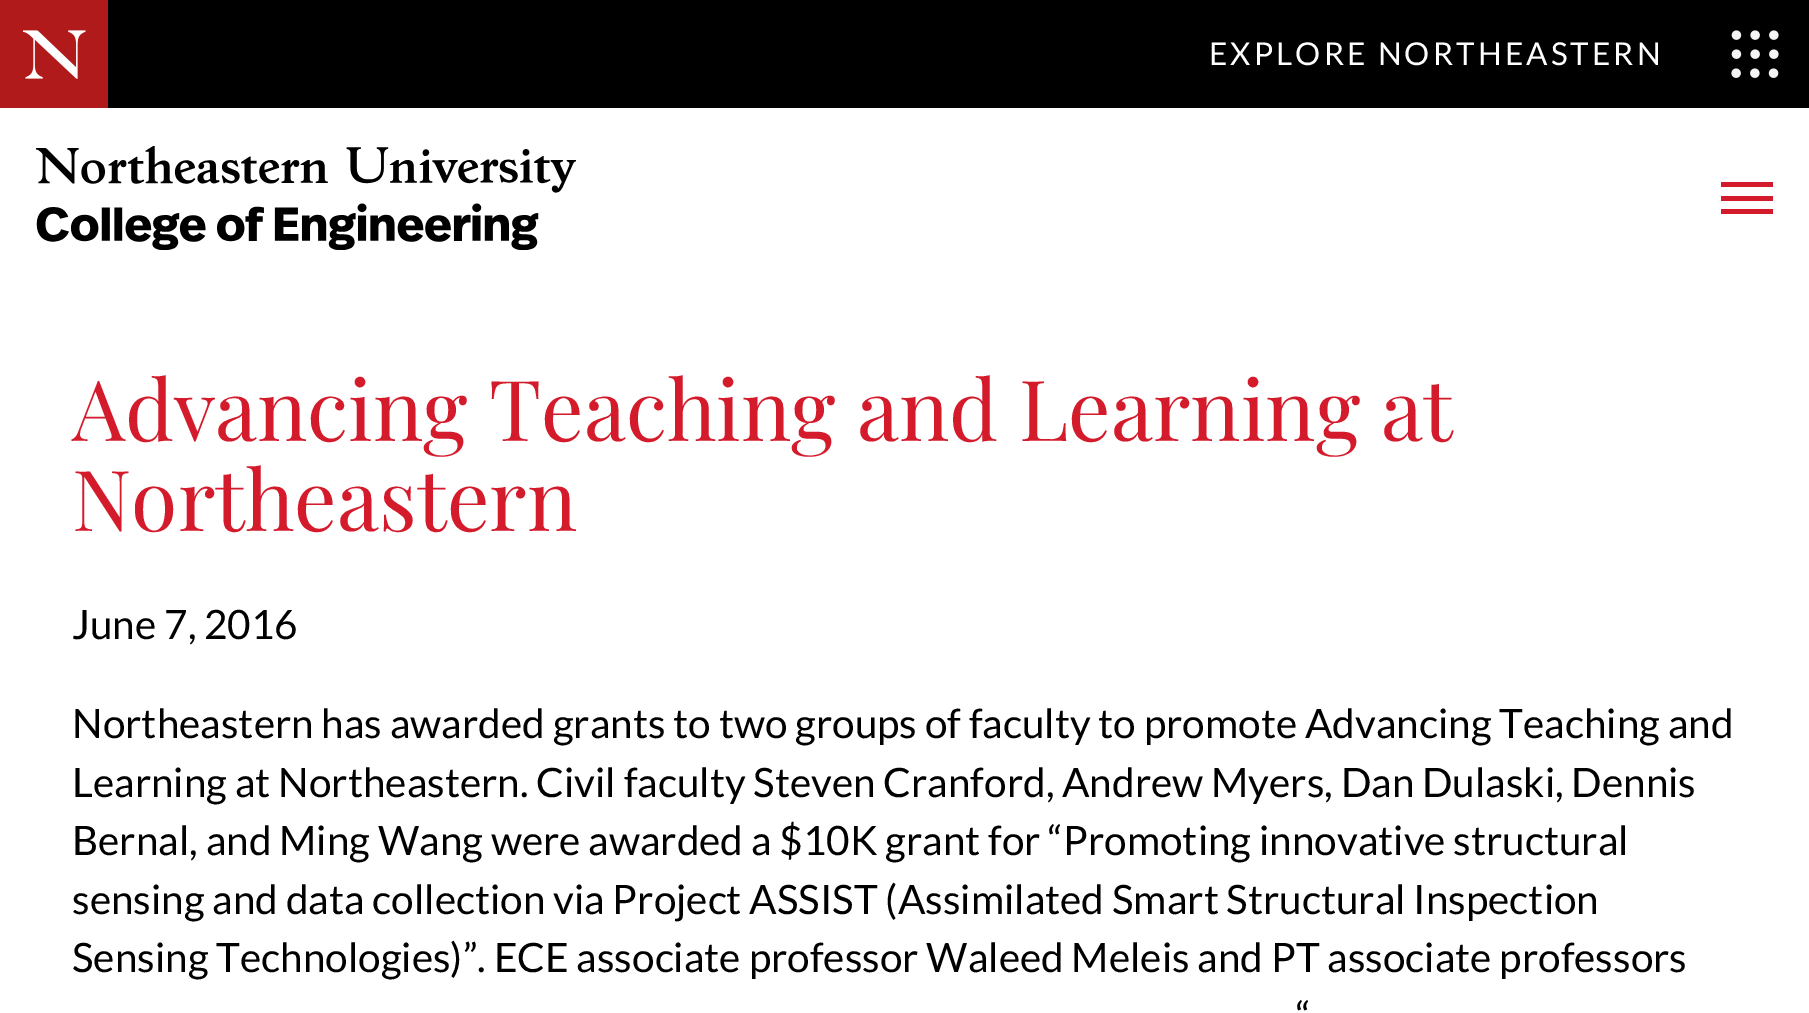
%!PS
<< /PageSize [1809 1013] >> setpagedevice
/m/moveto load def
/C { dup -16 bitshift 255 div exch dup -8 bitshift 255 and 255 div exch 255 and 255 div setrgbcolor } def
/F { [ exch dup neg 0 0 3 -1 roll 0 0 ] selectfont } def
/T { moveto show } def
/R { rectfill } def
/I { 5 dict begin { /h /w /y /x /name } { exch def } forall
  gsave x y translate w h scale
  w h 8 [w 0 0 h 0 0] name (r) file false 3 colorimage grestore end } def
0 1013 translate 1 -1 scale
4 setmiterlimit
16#FFFFFF C
0 0 1809 1013 R
16#000000 C
108 0 1701 108 R
16#B01A1B C
0 0 108 108 R
(1.rgb) 23 30 63 49 I
/Lato-Regular 31.5 F
16#FFFFFF C
1209 65 m 3.1 0 (EXPLORE NORTHEASTERN) ashow
(2.rgb) 1731 30 48 48 I
(3.rgb) 36 146 540 104 I
16#D41B2C C
1721 182 52 5 R
1721 196 52 5 R
1721 209 52 5 R
/PlayfairDisplay-Regular 84.25 F
(Advancing Teaching and Learning at) 72 441 T
(Northeastern) 72 531 T
/Lato-Regular 40.5 F
16#000000 C
(June 7, 2016) 72 639 T
(Northeastern has awarded grants to two groups of faculty to promote Advancing Teaching and) 72 738 T
(Learning at Northeastern. Civil faculty Steven Cranford, Andrew Myers, Dan Dulaski, Dennis) 72 797 T
(Bernal, and Ming Wang were awarded a $10K grant for “Promoting innovative structural) 72 855 T
(sensing and data collection via Project ASSIST \(Assimilated Smart Structural Inspection) 72 914 T
(Sensing Technologies\)”. ECE associate professor Waleed Meleis and PT associate professors) 72 972 T
(“) 1296 1031 T
showpage
